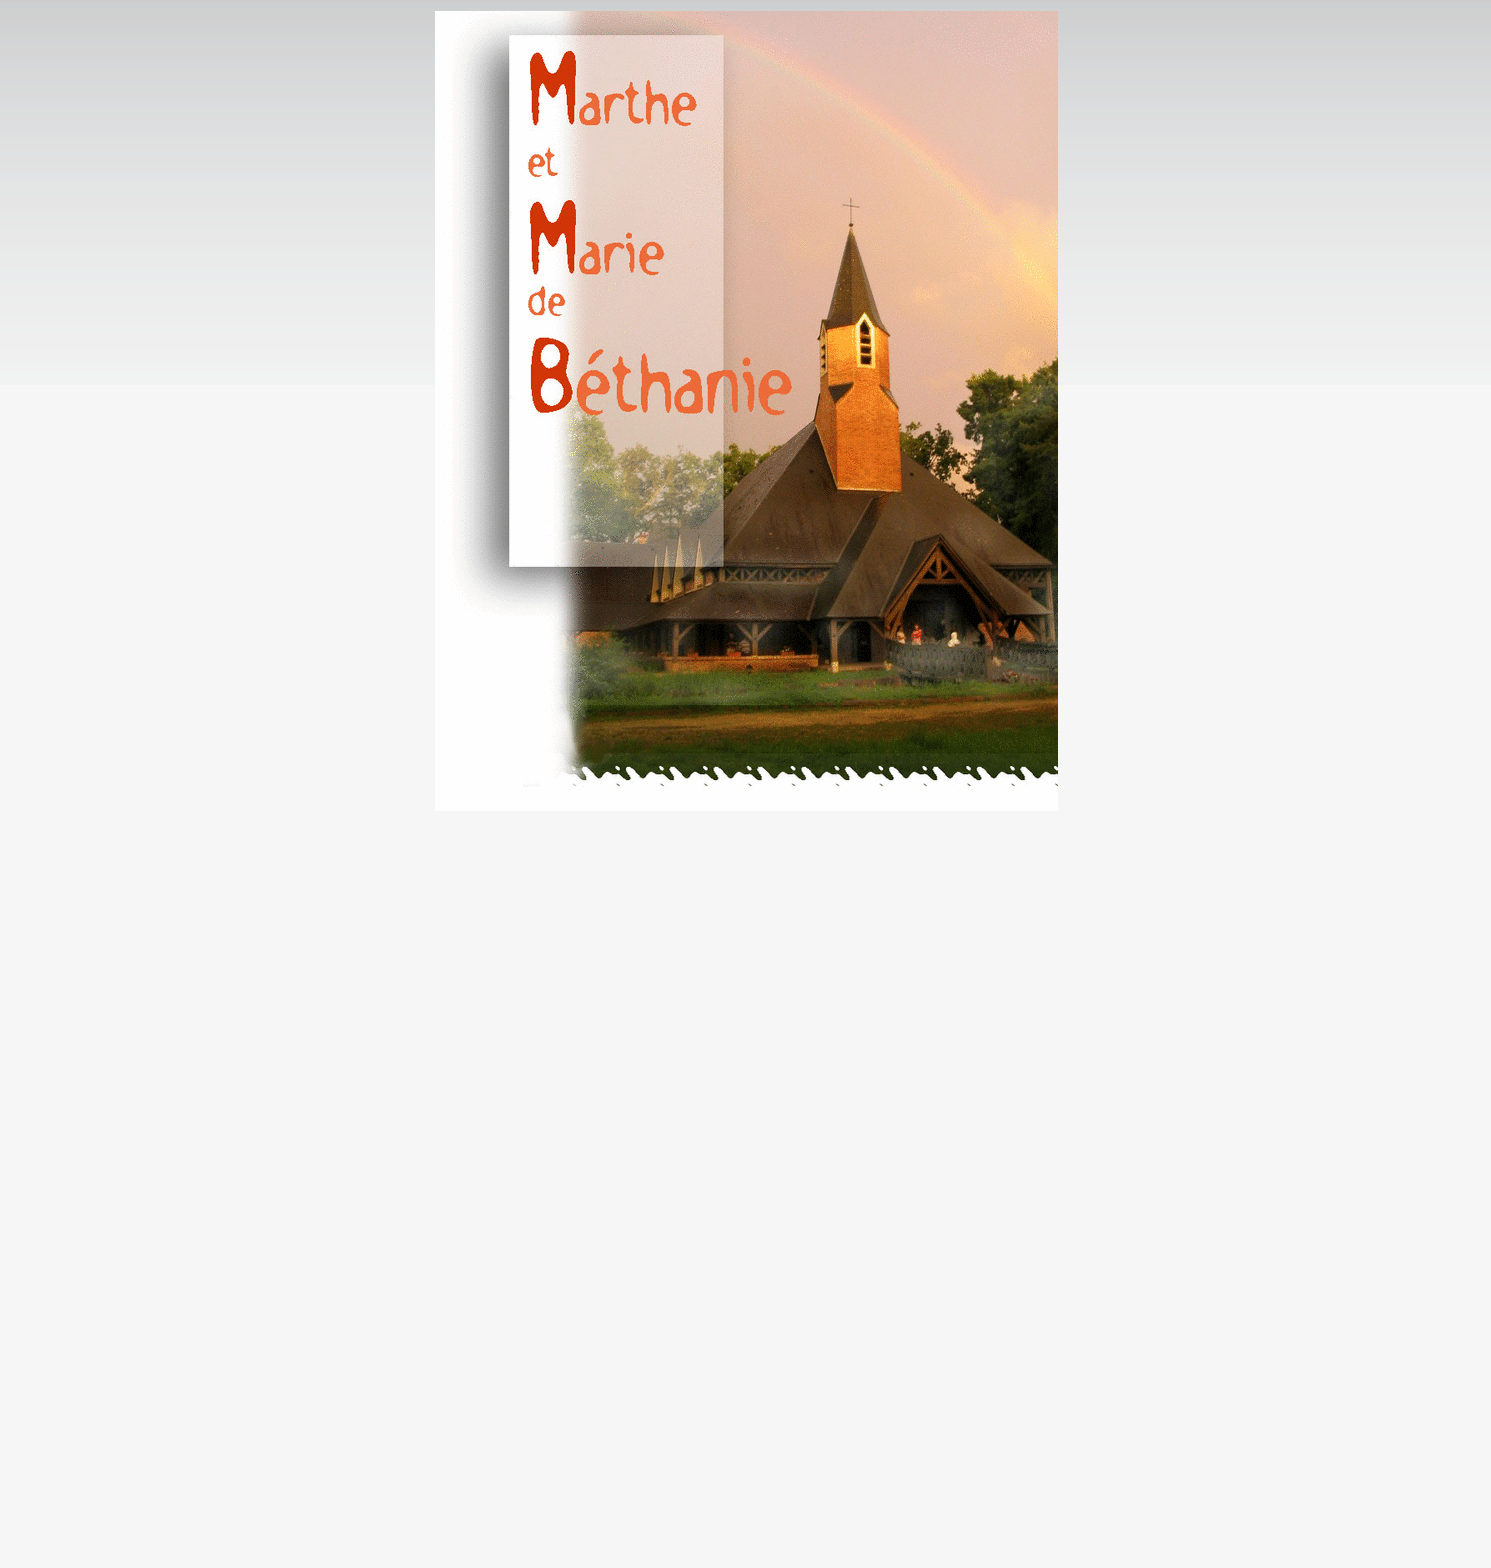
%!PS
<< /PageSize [1491 1568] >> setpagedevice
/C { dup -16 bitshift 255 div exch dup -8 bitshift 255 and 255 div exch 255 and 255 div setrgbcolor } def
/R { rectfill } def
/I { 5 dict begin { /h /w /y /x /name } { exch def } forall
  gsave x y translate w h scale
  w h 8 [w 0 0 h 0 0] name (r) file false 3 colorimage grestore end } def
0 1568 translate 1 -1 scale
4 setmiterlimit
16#F6F6F6 C
0 0 1491 1568 R
(1.rgb) 0 0 1491 385 I
(2.rgb) 435 11 623 800 I
showpage
